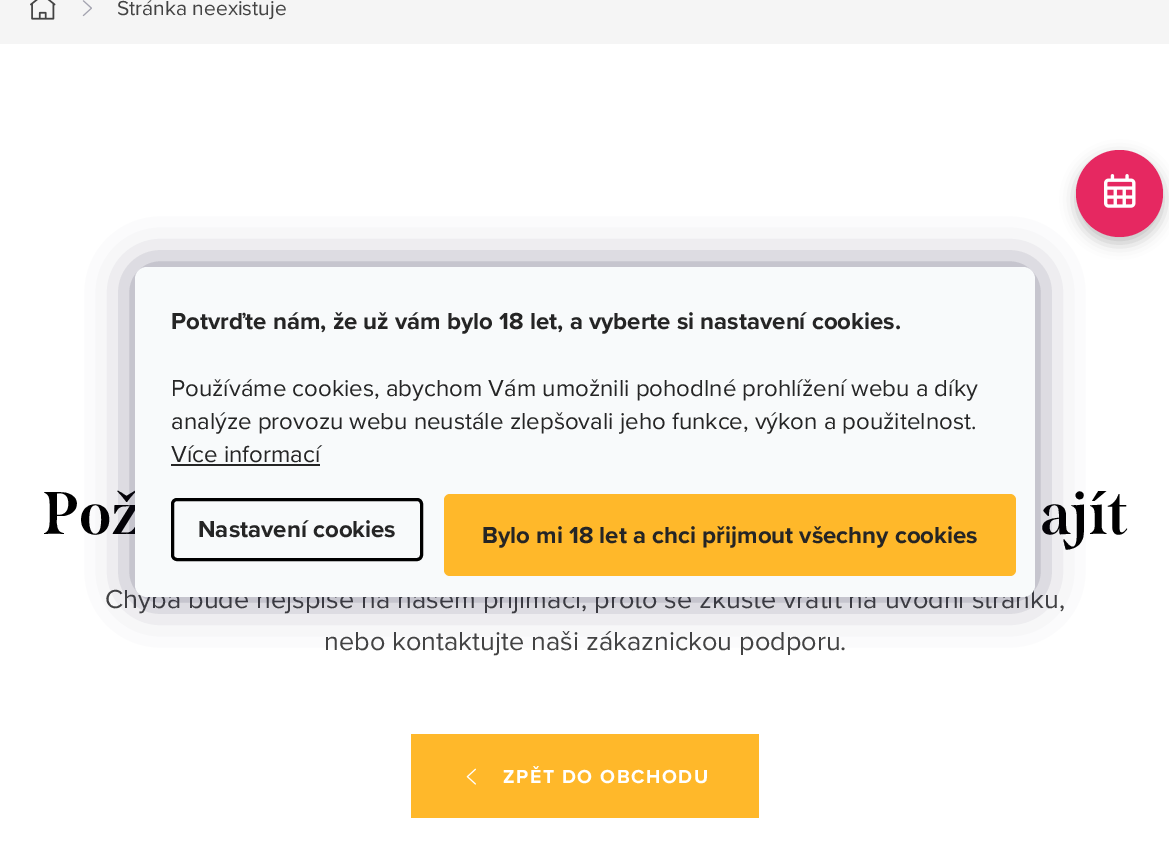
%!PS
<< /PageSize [1169 863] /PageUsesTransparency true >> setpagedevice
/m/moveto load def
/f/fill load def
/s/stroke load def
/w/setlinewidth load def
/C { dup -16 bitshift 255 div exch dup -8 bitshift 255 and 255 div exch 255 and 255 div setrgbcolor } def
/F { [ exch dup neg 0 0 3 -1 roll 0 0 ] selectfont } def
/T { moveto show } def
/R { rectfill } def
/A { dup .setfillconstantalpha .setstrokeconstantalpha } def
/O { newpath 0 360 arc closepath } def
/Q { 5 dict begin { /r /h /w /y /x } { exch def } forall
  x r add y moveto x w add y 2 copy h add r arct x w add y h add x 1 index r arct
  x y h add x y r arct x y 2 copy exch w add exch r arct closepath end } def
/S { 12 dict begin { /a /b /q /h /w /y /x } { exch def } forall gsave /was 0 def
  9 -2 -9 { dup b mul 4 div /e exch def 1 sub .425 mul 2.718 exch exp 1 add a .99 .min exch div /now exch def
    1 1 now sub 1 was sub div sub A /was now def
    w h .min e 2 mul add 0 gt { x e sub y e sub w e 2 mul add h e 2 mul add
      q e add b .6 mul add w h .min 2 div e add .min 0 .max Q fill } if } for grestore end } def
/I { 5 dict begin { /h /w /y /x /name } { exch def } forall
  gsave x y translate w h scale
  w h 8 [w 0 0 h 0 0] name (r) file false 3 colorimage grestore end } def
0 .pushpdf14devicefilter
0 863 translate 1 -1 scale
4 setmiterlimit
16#FFFFFF C
0 0 1169 863 R
16#F5F5F5 C
0 0 1169 44 R
(1.rgb) 30 0 26 20 I
(2.rgb) 82 0 10 17 I
/ProximaNova-Regular 21 F
16#434343 C
(Stránka neexistuje) 117 15 T
/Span-Bold 60 F
16#000000 C
(Pož) 42 534 T
(ajít) 1041 534 T
/ProximaNova-Regular 27 F
16#434343 C
(Chyba bude nejspíše na našem přijímači, proto se zkuste vrátit na úvodní stránku,) 105 608 T
(nebo kontaktujte naši zákaznickou podporu.) 324 650 T
16#FFB82A C
411 734 348 84 R
(3.rgb) 466 768 10 17 I
/ProximaNova-Bold 19.5 F
16#FFFFFF C
503 783 m 1.5 0 (ZPĚT DO OBCHODU) ashow
16#000000 C
1076 156 87 87 43.5 7.5 .25 S
16#E62861 C
1119.5 193.5 43.5 O f
(4.rgb) 1104 174 32 34 I
16#1B1939 C
135 267 900 330 12 22.5 .5 S
16#F8FAFB C
135 267 900 330 12 Q f
/ProximaNova-Bold 24 F
16#252525 C
(Potvrďte nám, že už vám bylo 18 let, a vyberte si nastavení cookies.) 171 329 T
/ProximaNova-Regular 24 F
(Používáme cookies, abychom Vám umožnili pohodlné prohlížení webu a díky) 171 396 T
(analýze provozu webu neustále zlepšovali jeho funkce, výkon a použitelnost.) 171 429 T
(Více informací) 171 462 T
171 464 149 2 R
16#000000 C
3 w
172.5 499.5 249 60 4.5 Q s
/ProximaNova-Bold 24 F
16#252525 C
(Nastavení cookies) 198 537 T
16#FFB82A C
444 494 572 82 6 Q f
16#252525 C
(Bylo mi 18 let a chci přijmout všechny cookies) 482 543 T
.poppdf14devicefilter showpage
